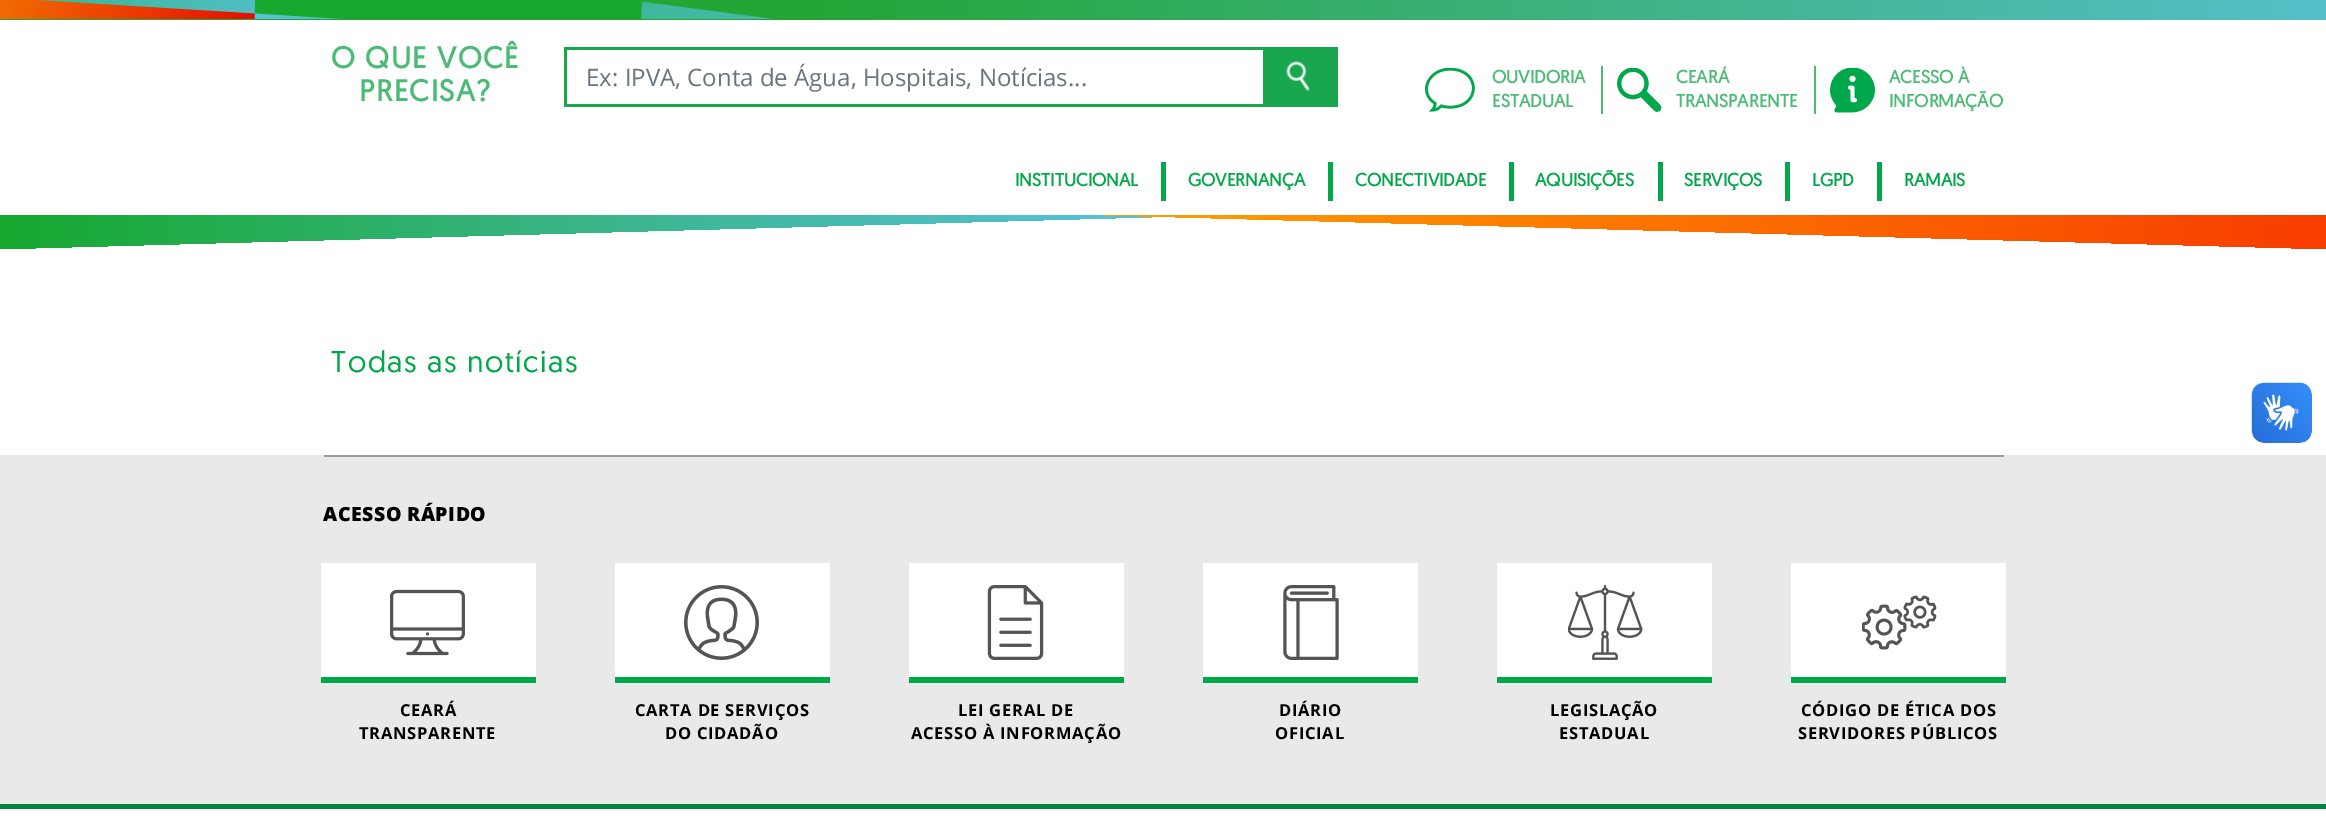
%!PS
<< /PageSize [2326 825] >> setpagedevice
/m/moveto load def
/l/rlineto load def
/z/closepath load def
/q/gsave load def
/Q_/grestore load def
/C { dup -16 bitshift 255 div exch dup -8 bitshift 255 and 255 div exch 255 and 255 div setrgbcolor } def
/F { [ exch dup neg 0 0 3 -1 roll 0 0 ] selectfont } def
/T { moveto show } def
/R { rectfill } def
/I { 5 dict begin { /h /w /y /x /name } { exch def } forall
  gsave x y translate w h scale
  w h 8 [w 0 0 h 0 0] name (r) file false 3 colorimage grestore end } def
0 825 translate 1 -1 scale
4 setmiterlimit
16#FFFFFF C
0 0 2326 825 R
q 0 0 m 2326 0 l 0 20 l -2326 0 l z clip newpath
<< /ShadingType 2 /ColorSpace /DeviceRGB /Coords [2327 -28 0 -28] /Extend [true true] /Function << /FunctionType 3 /Domain [0 1] /Functions [<< /FunctionType 2 /Domain [0 1] /C0 [.337 .749 .788] /C1 [.141 .651 .216] /N 1 >> << /FunctionType 2 /Domain [0 1] /C0 [.141 .651 .216] /C1 [.141 .651 .216] /N 1 >>] /Bounds [.65] /Encode [0 1 0 1] >> >> shfill Q_
(1.rgb) 0 0 773 19 I
/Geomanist-Bold 30 F
16#4CBB76 C
331 68 m 1.5 0 (O QUE VOCÊ) ashow
359 101 m 1.5 0 (PRECISA?) ashow
16#18A74F C
564 47 699 3 R
564 104 699 3 R
564 47 3 60 R
/OpenSans-Regular 24 F
16#6C757D C
(Ex: IPVA, Conta de Água, Hospitais, Notícias...) 586 86 T
16#18A74F C
1263 47 75 60 R
(2.rgb) 1286 61 24 30 I
16#4CBB76 C
1601 66 2 48 R
(3.rgb) 1425 68 50 44 I
/Geomanist-Bold 18 F
(OUVIDORIA) 1492 83 T
(ESTADUAL) 1492 107 T
1814 66 2 48 R
(4.rgb) 1617 68 45 44 I
(CEARÁ) 1676 83 T
(TRANSPARENTE) 1676 107 T
(5.rgb) 1830 68 45 45 I
(ACESSO À) 1889 83 T
(INFORMAÇÃO) 1889 107 T
16#00A84A C
1161 162 5 39 R
(INSTITUCIONAL) 1015 186 T
1328 162 5 39 R
(GOVERNANÇA) 1188 186 T
1509 162 5 39 R
(CONECTIVIDADE) 1355 186 T
1658 162 5 39 R
(AQUISIÇÕES) 1535 186 T
1785 162 5 39 R
(SERVIÇOS) 1684 186 T
1877 162 5 39 R
(LGPD) 1812 186 T
(RAMAIS) 1904 186 T
q 0 215 m 0 34 l 1224 -34 l z clip newpath
<< /ShadingType 2 /ColorSpace /DeviceRGB /Coords [-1.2 243 1224 243] /Extend [true true] /Function << /FunctionType 2 /Domain [0 1] /C0 [.094 .659 .184] /C1 [.357 .769 .91] /N 1 >> >> shfill Q_
q 1104 215 m 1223 34 l 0 -34 l z clip newpath
<< /ShadingType 2 /ColorSpace /DeviceRGB /Coords [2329 220 1104 220] /Extend [true true] /Function << /FunctionType 2 /Domain [0 1] /C0 [.973 .239 0] /C1 [1 .631 0] /N 1 >> >> shfill Q_
/Geomanist-Regular 30 F
331 372 m 1.5 0 (Todas as notícias) ashow
(6.rgb) 2251 382 61 61 I
(7.rgb) 2252 383 60 60 I
16#E9E9E9 C
0 455 2326 349 R
16#999DA0 C
324 455 1680 2 R
/OpenSans-ExtraBold 19.5 F
16#000000 C
323 521 m .5 0 (ACESSO RÁPIDO) ashow
16#FFFFFF C
321 563 215 114 R
(8.rgb) 390 589 75 67 I
16#00A84A C
321 677 215 6 R
/OpenSans-Bold 16.5 F
16#000000 C
400 716 m .75 0 (CEARÁ) ashow
359 739 m .75 0 (TRANSPARENTE) ashow
16#FFFFFF C
615 563 215 114 R
(9.rgb) 684 585 75 75 I
16#00A84A C
615 677 215 6 R
16#000000 C
635 716 m .75 0 (CARTA DE SERVIÇOS) ashow
665 739 m .75 0 (DO CIDADÃO) ashow
16#FFFFFF C
909 563 215 114 R
(10.rgb) 987 585 57 75 I
16#00A84A C
909 677 215 6 R
16#000000 C
958 716 m .75 0 (LEI GERAL DE) ashow
911 739 m .75 0 (ACESSO À INFORMAÇÃO) ashow
16#FFFFFF C
1203 563 215 114 R
(11.rgb) 1283 585 56 75 I
16#00A84A C
1203 677 215 6 R
16#000000 C
1279 716 m .75 0 (DIÁRIO) ashow
1275 739 m .75 0 (OFICIAL) ashow
16#FFFFFF C
1497 563 215 114 R
(12.rgb) 1568 585 75 75 I
16#00A84A C
1497 677 215 6 R
16#000000 C
1550 716 m .75 0 (LEGISLAÇÃO) ashow
1559 739 m .75 0 (ESTADUAL) ashow
16#FFFFFF C
1791 563 215 114 R
(13.rgb) 1862 595 75 55 I
16#00A84A C
1791 677 215 6 R
16#000000 C
1801 716 m .75 0 (CÓDIGO DE ÉTICA DOS) ashow
1798 739 m .75 0 (SERVIDORES PÚBLICOS) ashow
16#008442 C
0 804 2326 5 R
showpage
